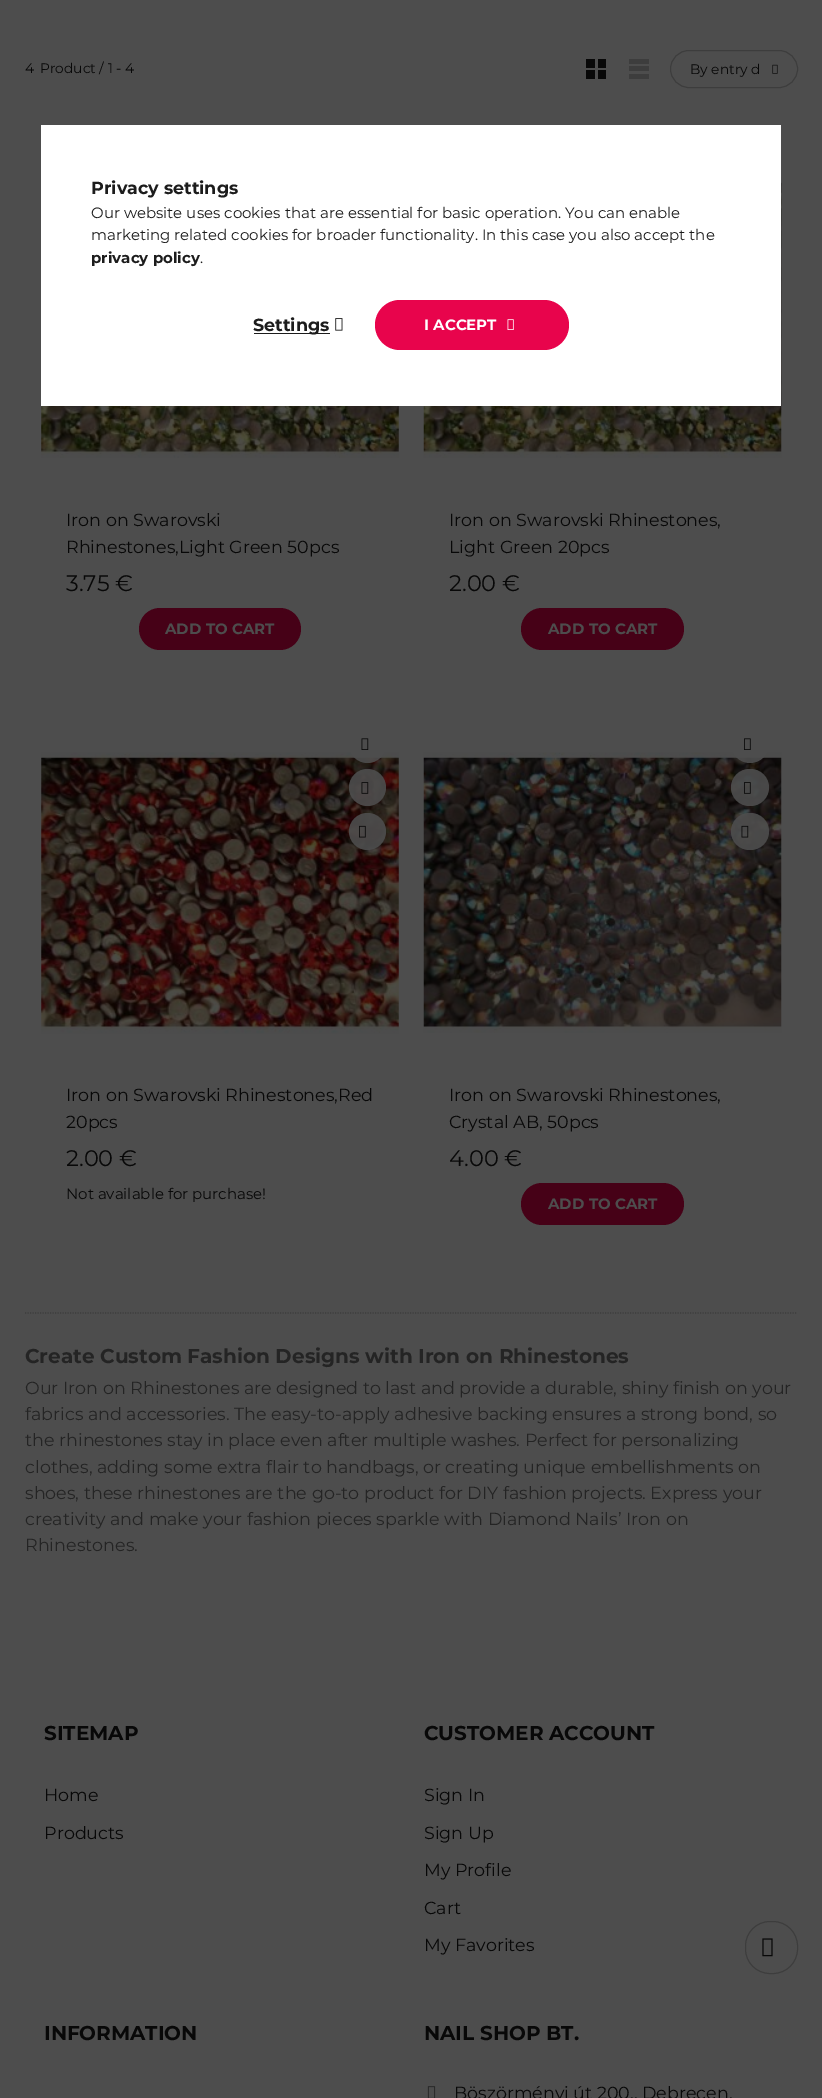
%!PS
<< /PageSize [822 2098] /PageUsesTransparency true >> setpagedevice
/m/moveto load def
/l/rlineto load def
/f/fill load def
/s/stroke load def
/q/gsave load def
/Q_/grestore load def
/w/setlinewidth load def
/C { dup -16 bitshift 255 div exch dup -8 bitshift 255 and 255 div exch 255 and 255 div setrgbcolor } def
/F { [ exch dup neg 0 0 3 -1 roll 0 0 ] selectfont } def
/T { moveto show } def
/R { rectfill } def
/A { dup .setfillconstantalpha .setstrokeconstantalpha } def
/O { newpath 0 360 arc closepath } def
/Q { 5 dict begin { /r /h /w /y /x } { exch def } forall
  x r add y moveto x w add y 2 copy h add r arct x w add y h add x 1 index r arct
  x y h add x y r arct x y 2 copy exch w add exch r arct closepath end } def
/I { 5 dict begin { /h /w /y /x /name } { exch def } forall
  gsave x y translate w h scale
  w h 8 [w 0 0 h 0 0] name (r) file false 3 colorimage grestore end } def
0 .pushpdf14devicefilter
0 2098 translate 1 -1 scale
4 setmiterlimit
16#4D4D4D C
0 0 822 2098 R
/Montserrat-Regular 13.75 F
16#080808 C
(4) 25 73 T
(Product / 1 - 4) 40 73 T
586 59 9 9 R
598 59 8 9 R
586 70 9 9 R
598 70 8 9 R
16#3D3D3D C
629 59 20 5 R
629 66 20 5 R
629 74 20 5 R
670.5 50.5 127 37 18.5 Q s
q
690 60 69 20 rectclip
16#080808 C
(By entry d) 690 74 T
Q_
(1.rgb) 772 64 6 10 I
(2.rgb) 41 406 358 52 I
/Montserrat-Regular 17.5 F
16#080808 C
(Iron on Swarovski) 66 526 T
(Rhinestones,Light Green 50pcs) 66 553 T
/Montserrat-Regular 22.5 F
(3.75 €) 66 591 T
16#460117 C
139 608 162 42 21 Q f
/Montserrat-Bold 15 F
16#4D4D4D C
(ADD TO CART) 165 634 T
(3.rgb) 423 177 359 281 I
/Montserrat-Regular 17.5 F
16#080808 C
(Iron on Swarovski Rhinestones,) 449 526 T
(Light Green 20pcs) 449 553 T
/Montserrat-Regular 22.5 F
(2.00 €) 449 591 T
16#460117 C
521 608 163 42 21 Q f
/Montserrat-Bold 15 F
16#4D4D4D C
(ADD TO CART) 548 634 T
(7.rgb) 41 752 358 282 I
0.9 A
349 725 37 38 18.5 Q f
1 A
(4.rgb) 361 738 8 12 I
0.9 A
367.5 787.5 18.5 O f
1 A
(5.rgb) 361 782 8 12 I
0.9 A
367.5 831.5 18.5 O f
1 A
(6.rgb) 359 825 7 13 I
/Montserrat-Regular 17.5 F
16#080808 C
(Iron on Swarovski Rhinestones,Red) 66 1101 T
(20pcs) 66 1128 T
/Montserrat-Regular 22.5 F
(2.00 €) 66 1166 T
/Montserrat-Regular 15 F
(Not available for purchase!) 66 1199 T
(11.rgb) 423 752 359 281 I
0.9 A
16#4D4D4D C
750 744 19 O f
1 A
(8.rgb) 744 738 7 12 I
0.9 A
731 769 38 37 18.5 Q f
1 A
(9.rgb) 744 782 7 12 I
0.9 A
731 813 38 37 18.5 Q f
1 A
(10.rgb) 741 825 8 13 I
/Montserrat-Regular 17.5 F
16#080808 C
(Iron on Swarovski Rhinestones,) 449 1101 T
(Crystal AB, 50pcs) 449 1128 T
/Montserrat-Regular 22.5 F
(4.00 €) 449 1166 T
16#460117 C
521 1183 163 42 21 Q f
/Montserrat-Bold 15 F
16#4D4D4D C
(ADD TO CART) 548 1209 T
16#3D3D3D C
1.2 w
[1.25 1.25] 0 setdash
25 1313 m 772.5 0 l s
/Montserrat-Bold 20 F
16#242424 C
(Create Custom Fashion Designs with Iron on Rhinestones) 25 1363 T
/Montserrat-Regular 17.5 F
(Our Iron on Rhinestones are designed to last and provide a durable, shiny finish on your) 25 1394 T
(fabrics and accessories. The easy-to-apply adhesive backing ensures a strong bond, so) 25 1420 T
(the rhinestones stay in place even after multiple washes. Perfect for personalizing) 25 1446 T
(clothes, adding some extra flair to handbags, or creating unique embellishments on) 25 1473 T
(shoes, these rhinestones are the go-to product for DIY fashion projects. Express your) 25 1499 T
(creativity and make your fashion pieces sparkle with Diamond Nails’ Iron on) 25 1525 T
(Rhinestones.) 25 1551 T
/Montserrat-Bold 20 F
16#080808 C
(SITEMAP) 44 1740 T
/Montserrat-Regular 17.5 F
(Home) 44 1801 T
(Products) 44 1839 T
/Montserrat-Bold 20 F
(CUSTOMER ACCOUNT) 424 1740 T
/Montserrat-Regular 17.5 F
(Sign In) 424 1801 T
(Sign Up) 424 1839 T
(My Profile) 424 1876 T
(Cart) 424 1914 T
(My Favorites) 424 1951 T
/Montserrat-Bold 20 F
(INFORMATION) 44 2040 T
(NAIL SHOP BT.) 424 2040 T
(12.rgb) 427 2086 9 12 I
/Montserrat-Regular 17.5 F
(Böszörményi út 200., Debrecen,) 454 2099 T
16#FFFFFF C
41 125 740 281 R
/Montserrat-Bold 17.5 F
16#1C1C1C C
(Privacy settings) 91 194 T
/Montserrat-Regular 15 F
(Our website uses cookies that are essential for basic operation. You can enable) 91 218 T
(marketing related cookies for broader functionality. In this case you also accept the) 91 240 T
/Montserrat-Bold 15 F
(privacy policy) 91 263 T
/Montserrat-Regular 15 F
(.) 200 263 T
254 333 76 1 R
/Montserrat-Bold 17.5 F
(Settings) 253 331 T
(13.rgb) 335 318 8 13 I
16#E8044C C
375 300 194 50 25 Q f
/Montserrat-Bold 15 F
16#FFFFFF C
(I ACCEPT) 424 330 T
(14.rgb) 507 319 7 11 I
16#3D3D3D C
1 w
[] 0 setdash
745.5 1921.5 52 52 24.5 Q s
(15.rgb) 762 1938 11 19 I
.poppdf14devicefilter showpage
